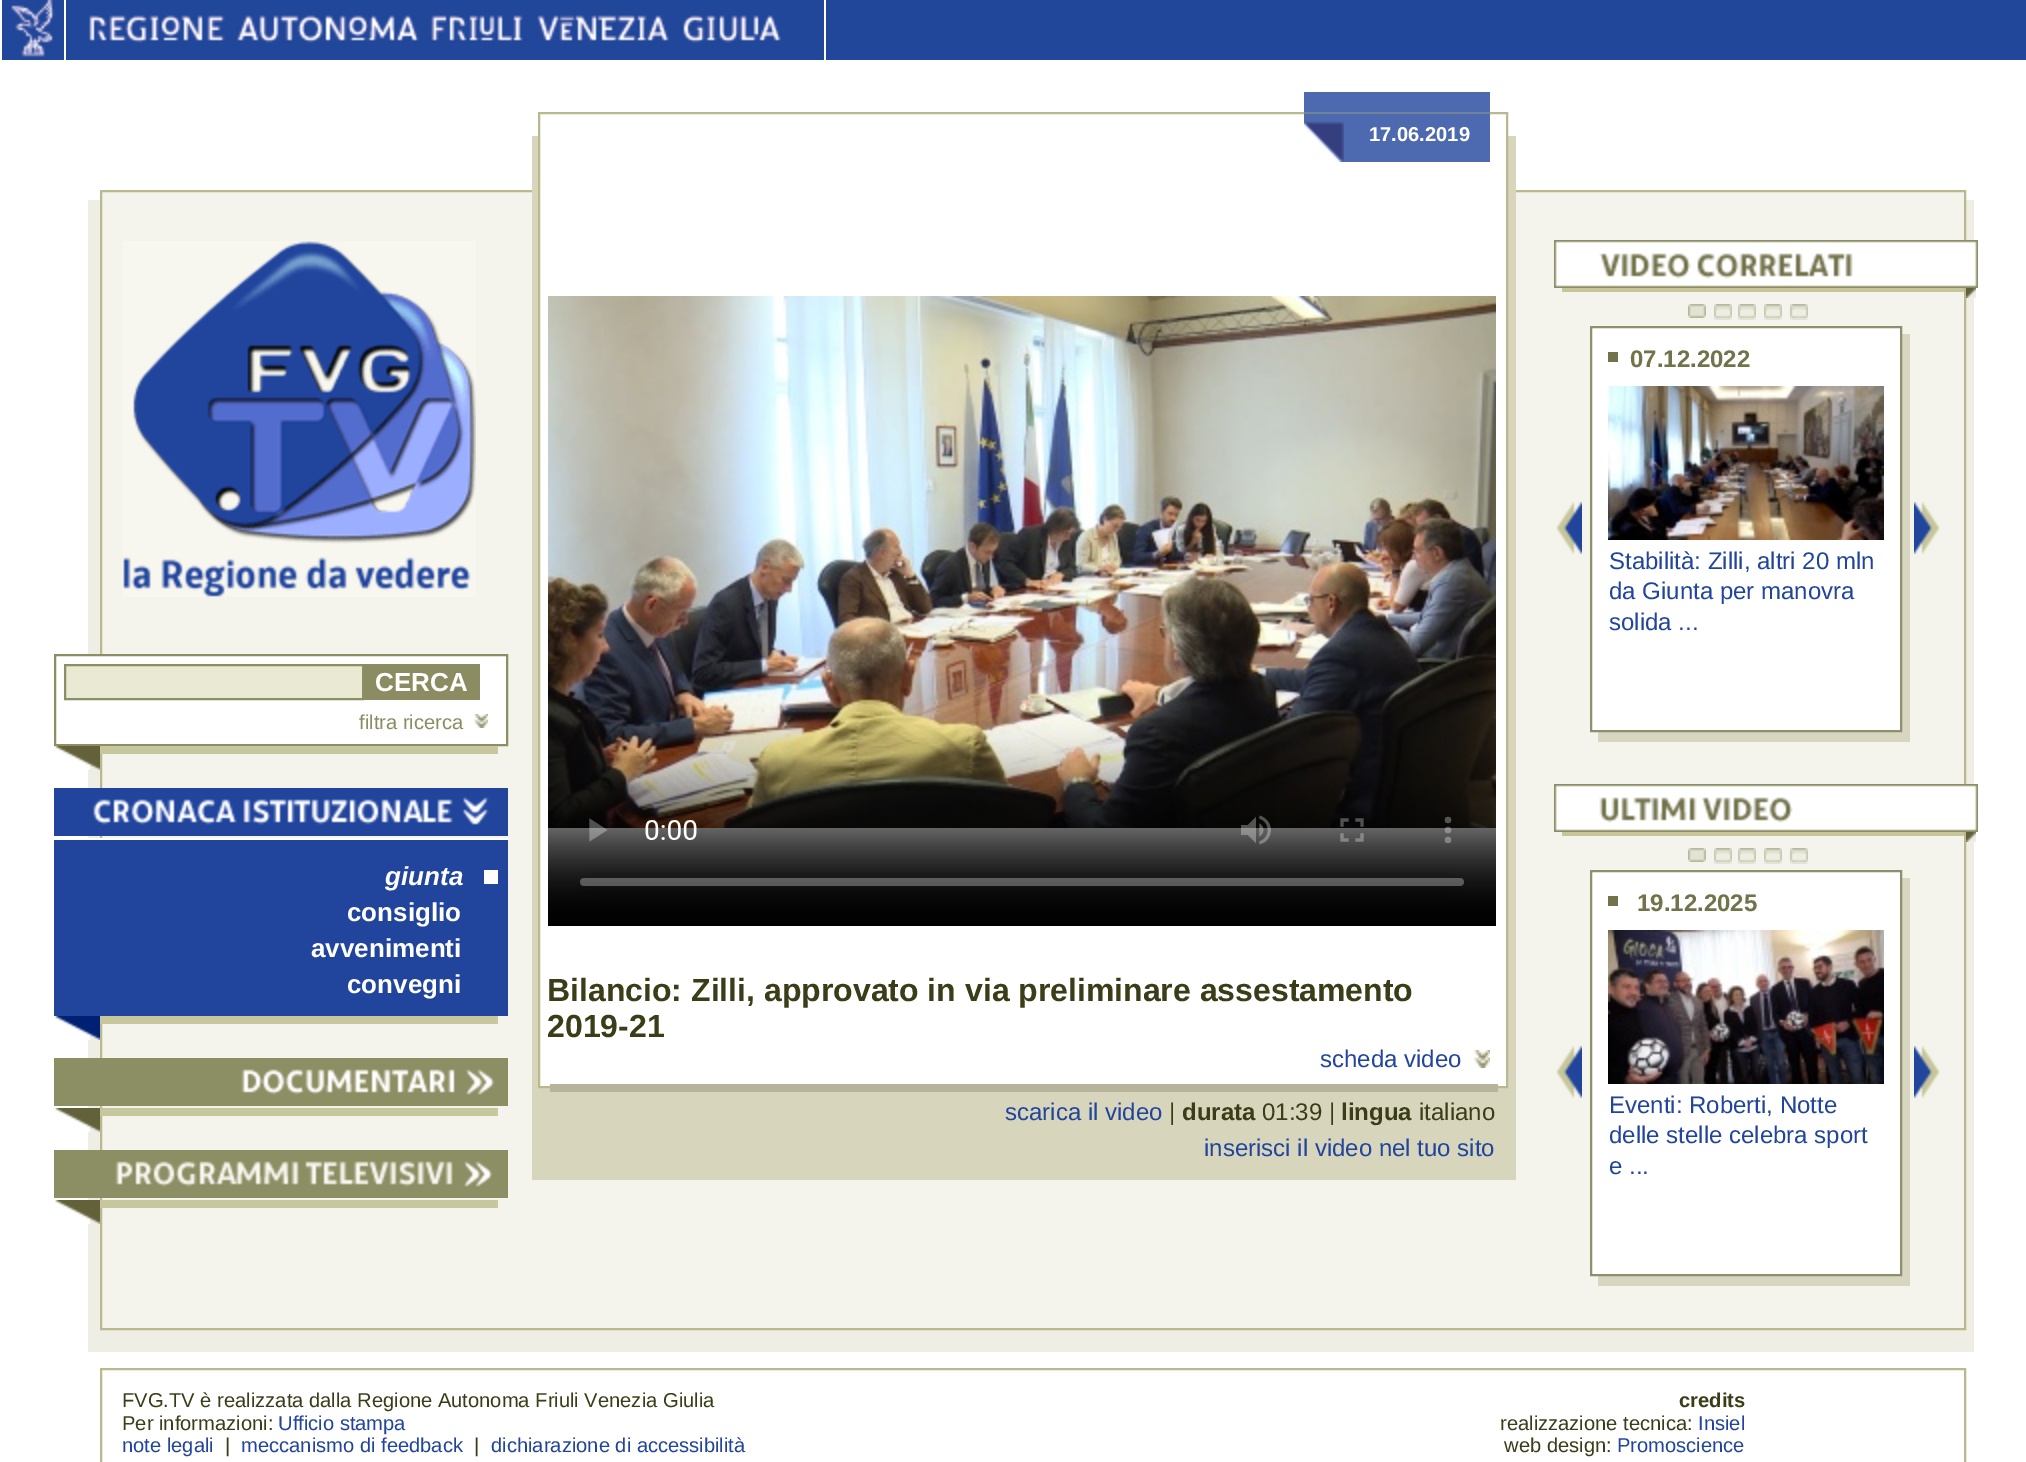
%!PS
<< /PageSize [2026 1462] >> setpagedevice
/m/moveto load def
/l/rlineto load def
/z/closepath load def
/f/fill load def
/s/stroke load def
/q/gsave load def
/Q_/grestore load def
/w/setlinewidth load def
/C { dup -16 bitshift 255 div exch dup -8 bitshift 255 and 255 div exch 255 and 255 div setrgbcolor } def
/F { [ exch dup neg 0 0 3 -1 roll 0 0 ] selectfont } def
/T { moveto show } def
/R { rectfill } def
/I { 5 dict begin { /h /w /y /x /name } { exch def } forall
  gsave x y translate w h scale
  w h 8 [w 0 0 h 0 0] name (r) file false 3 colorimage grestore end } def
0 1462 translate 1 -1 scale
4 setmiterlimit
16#FFFFFF C
0 0 2026 1462 R
16#21479A C
2 0 2024 60 R
16#FFFFFF C
64 0 2 66 R
(1.rgb) 11 0 44 57 I
824 0 2 66 R
(2.rgb) 89 15 692 28 I
16#EEEEE4 C
88 200 1886 1152 R
16#F4F4EC C
101 191 m 1864 0 l 0 1138 l -1864 0 l z q f Q_
16#BAB98E C
2 w
s
(3.rgb) 123 241 353 356 I
16#FFFFFF C
88 656 418 88 R
16#8C8E63 C
55 655 452 90 rectstroke
16#E9E9D4 C
65 665 m 298 0 l 0 34 l -298 0 l z q f Q_
16#8C8E63 C
s
16#8C8C63 C
364 664 116 36 R
/LiberationSans-Bold 26 F
16#FFFFFF C
(CERCA) 375 691 T
/LiberationSans-Regular 20.15 F
16#8C8C63 C
(filtra ricerca) 359 729 T
(4.rgb) 474 714 14 14 I
(5.rgb) 55 746 45 24 I
(6.rgb) 100 746 398 8 I
(7.rgb) 54 788 454 48 I
16#21449C C
54 840 454 176 R
16#FFFFFF C
88 838 420 2 R
/LiberationSans-BoldItalic 26 F
(giunta) 385 885 T
484 870 14 14 R
/LiberationSans-Bold 26 F
(consiglio) 347 921 T
(avvenimenti) 311 957 T
(convegni) 347 993 T
(8.rgb) 55 1016 45 24 I
(6.rgb) 100 1016 398 8 I
(9.rgb) 54 1058 454 48 I
(5.rgb) 55 1108 45 24 I
(6.rgb) 100 1108 398 8 I
(10.rgb) 54 1150 454 48 I
(5.rgb) 55 1200 45 24 I
(6.rgb) 100 1200 398 8 I
16#D7D6BD C
532 136 984 1044 R
16#FFFFFF C
540 136 966 950 R
16#BAB98E C
539 113 968 974 rectstroke
16#4D69B0 C
1304 92 186 70 R
16#70819A C
1304 112 186 2 R
(11.rgb) 1304 121 40 41 I
/LiberationSans-Bold 20.15 F
16#FFFFFF C
(17.06.2019) 1369 141 T
(12.rgb) 548 296 948 630 I
/LiberationSans-Bold 32 F
16#3B3C18 C
(Bilancio: Zilli, approvato in via preliminare assestamento) 547 1001 T
(2019-21) 547 1037 T
/LiberationSans-Regular 24 F
16#21449C C
(scheda video) 1320 1067 T
(13.rgb) 1474 1050 16 18 I
16#B6B59C C
550 1084 948 8 R
16#21449C C
(scarica il video) 1005 1120 T
16#3B3C18 C
(|) 1169 1120 T
/LiberationSans-Bold 24 F
(durata) 1182 1120 T
/LiberationSans-Regular 24 F
(01:39 |) 1262 1120 T
/LiberationSans-Bold 24 F
(lingua) 1341 1120 T
/LiberationSans-Regular 24 F
(italiano) 1419 1120 T
16#21449C C
(inserisci il video nel tuo sito) 1204 1156 T
(14.rgb) 1554 240 424 48 I
16#C7C69B C
1562 288 402 4 R
(15.rgb) 1966 288 10 10 I
(16.rgb) 1688 304 18 14 I
(17.rgb) 1714 304 18 14 I
(18.rgb) 1714 306 18 14 I
(17.rgb) 1738 304 18 14 I
(18.rgb) 1738 306 18 14 I
(17.rgb) 1764 304 18 14 I
(18.rgb) 1764 306 18 14 I
(17.rgb) 1790 304 18 14 I
(18.rgb) 1790 306 18 14 I
(19.rgb) 1556 502 26 52 I
16#D7D7BF C
1598 334 312 408 R
16#FFFFFF C
1591 327 m 310 0 l 0 404 l -310 0 l z q f Q_
16#8F8F6E C
s
16#72724B C
1608 352 10 10 R
/LiberationSans-Bold 24 F
(07.12.2022) 1630 367 T
(20.rgb) 1608 386 276 154 I
/LiberationSans-Regular 24 F
16#21449C C
(Stabilità: Zilli, altri 20 mln) 1609 569 T
(da Giunta per manovra) 1609 599 T
(solida ...) 1609 630 T
(21.rgb) 1914 502 26 52 I
(22.rgb) 1554 784 424 48 I
16#C7C69B C
1562 832 402 4 R
(15.rgb) 1966 832 10 10 I
(17.rgb) 1688 848 18 14 I
(17.rgb) 1714 848 18 14 I
(18.rgb) 1714 850 18 14 I
(17.rgb) 1738 848 18 14 I
(18.rgb) 1738 850 18 14 I
(17.rgb) 1764 848 18 14 I
(18.rgb) 1764 850 18 14 I
(17.rgb) 1790 848 18 14 I
(18.rgb) 1790 850 18 14 I
(19.rgb) 1556 1046 26 52 I
16#D7D7BF C
1598 878 312 408 R
16#FFFFFF C
1591 871 m 310 0 l 0 404 l -310 0 l z q f Q_
16#8F8F6E C
s
16#72724B C
1608 896 10 10 R
/LiberationSans-Bold 24 F
(19.12.2025) 1637 911 T
(23.rgb) 1608 930 276 154 I
/LiberationSans-Regular 24 F
16#21449C C
(Eventi: Roberti, Notte) 1609 1113 T
(delle stelle celebra sport) 1609 1143 T
(e ...) 1609 1174 T
(21.rgb) 1914 1046 26 52 I
16#BAB98E C
101 1369 1864 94 rectstroke
/LiberationSans-Regular 20.15 F
16#3B3C18 C
(FVG.TV è realizzata dalla Regione Autonoma Friuli Venezia Giulia) 122 1407 T
(Per informazioni:) 122 1430 T
16#21449C C
(Ufficio stampa) 278 1430 T
(note legali) 122 1452 T
16#3B3C18 C
(|) 225 1452 T
16#21449C C
(meccanismo di feedback) 241 1452 T
16#3B3C18 C
(|) 474 1452 T
16#21449C C
(dichiarazione di accessibilità) 491 1452 T
/LiberationSans-Bold 20.15 F
16#3B3C18 C
(credits) 1679 1407 T
/LiberationSans-Regular 20.15 F
(realizzazione tecnica:) 1500 1430 T
16#21449C C
(Insiel) 1698 1430 T
16#3B3C18 C
(web design:) 1504 1452 T
16#21449C C
(Promoscience) 1617 1452 T
showpage
